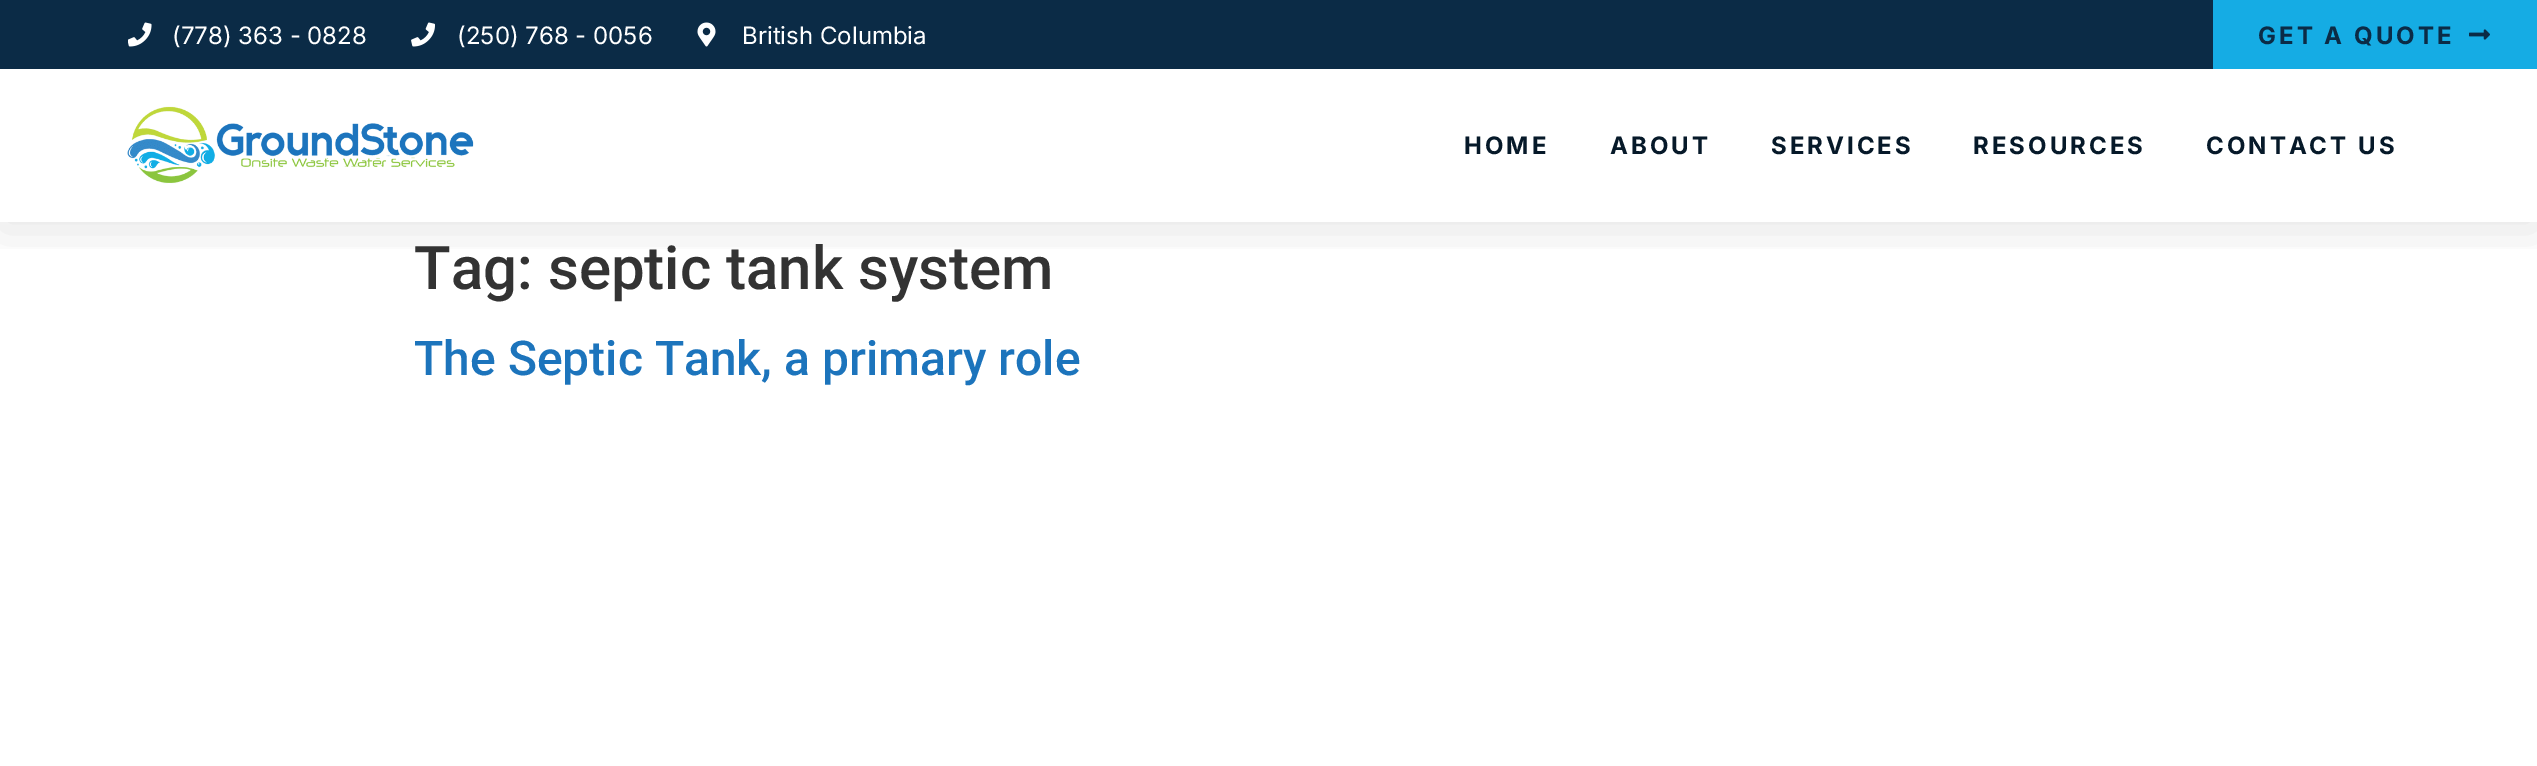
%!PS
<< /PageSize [2537 766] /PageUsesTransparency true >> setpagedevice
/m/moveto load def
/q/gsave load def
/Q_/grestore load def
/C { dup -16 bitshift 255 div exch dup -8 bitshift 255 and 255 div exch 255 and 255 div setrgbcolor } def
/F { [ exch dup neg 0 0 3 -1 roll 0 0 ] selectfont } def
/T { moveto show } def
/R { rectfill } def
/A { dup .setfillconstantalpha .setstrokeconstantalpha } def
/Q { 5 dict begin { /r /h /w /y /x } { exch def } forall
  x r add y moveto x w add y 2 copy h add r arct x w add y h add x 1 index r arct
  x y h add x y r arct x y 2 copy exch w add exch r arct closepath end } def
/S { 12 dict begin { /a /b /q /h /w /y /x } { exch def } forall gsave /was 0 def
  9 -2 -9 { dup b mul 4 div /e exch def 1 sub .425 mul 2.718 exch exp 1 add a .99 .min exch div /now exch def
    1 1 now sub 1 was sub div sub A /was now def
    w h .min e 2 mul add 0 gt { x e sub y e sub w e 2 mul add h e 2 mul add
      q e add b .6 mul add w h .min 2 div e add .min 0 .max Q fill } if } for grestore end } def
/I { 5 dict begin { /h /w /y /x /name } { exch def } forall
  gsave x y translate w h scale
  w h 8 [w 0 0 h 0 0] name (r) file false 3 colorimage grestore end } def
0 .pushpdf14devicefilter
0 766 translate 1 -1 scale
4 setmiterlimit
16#FFFFFF C
0 0 2537 766 R
q
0 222 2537 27 rectclip
16#000000 C
0 8 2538 222 0 22.5 .1 S
Q_
16#0B2B46 C
0 0 2213 69 R
(1.rgb) 128 22 24 25 I
/Inter-Regular 24 F
16#FFFFFF C
(\(778\) 363 - 0828) 172 44 T
(2.rgb) 411 22 24 25 I
(\(250\) 768 - 0056) 457 44 T
(3.rgb) 697 22 19 25 I
(British Columbia) 742 44 T
16#15ACE4 C
2213 0 324 69 R
/Inter-Bold 24 F
16#0B2B46 C
2258 44 m 3 0 (GET A QUOTE) ashow
(4.rgb) 2469 29 21 11 I
(5.rgb) 127 106 347 78 I
16#061929 C
1464 154 m 3 0 (HOME) ashow
1610 154 m 3 0 (ABOUT) ashow
1771 154 m 3 0 (SERVICES) ashow
1973 154 m 3 0 (RESOURCES) ashow
2206 154 m 3 0 (CONTACT US) ashow
/Roboto-Medium 60 F
16#333333 C
(Tag: septic tank system) 414 289 T
/Roboto-Medium 48 F
16#1C74BC C
(The Septic Tank, a primary role) 414 375 T
.poppdf14devicefilter showpage
